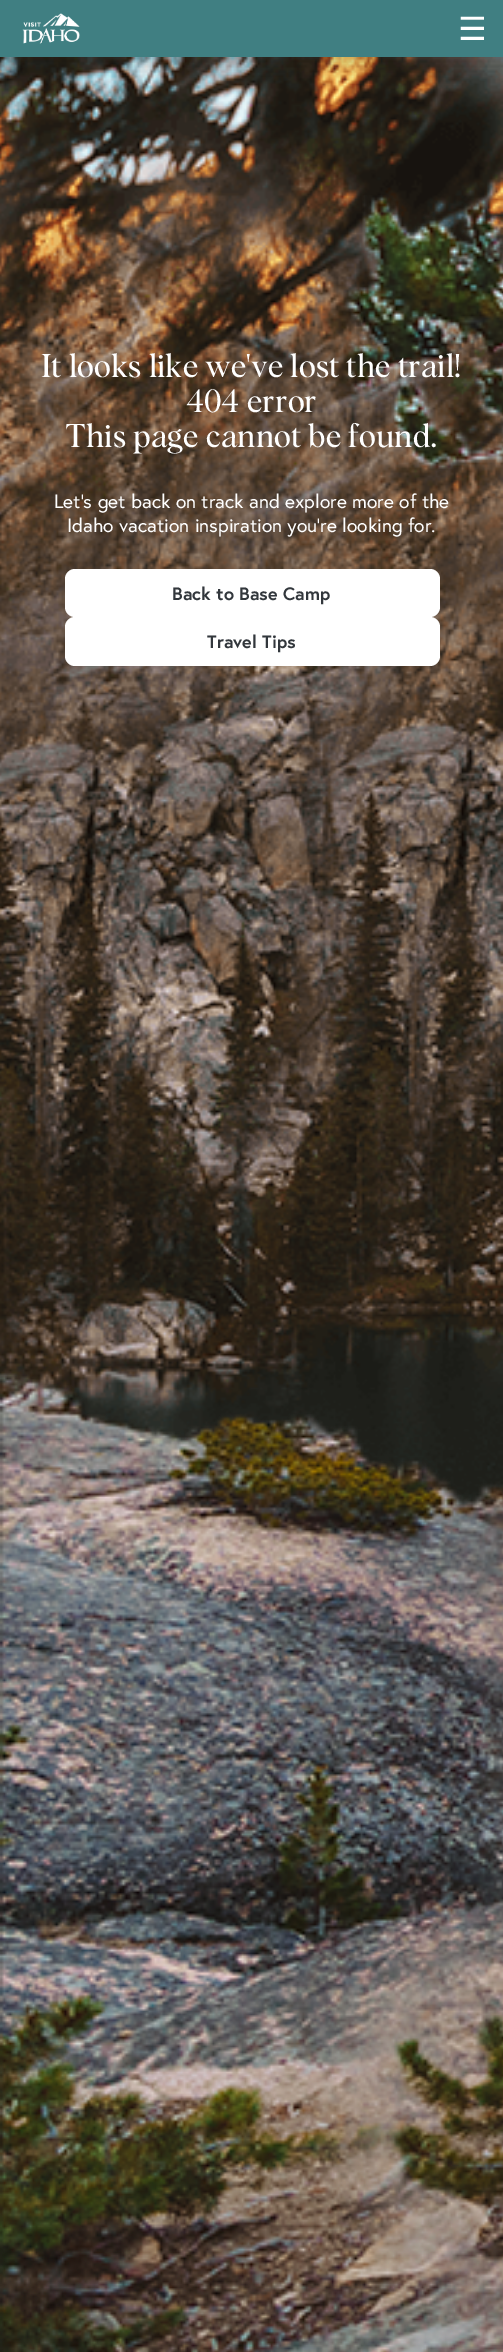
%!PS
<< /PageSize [503 2352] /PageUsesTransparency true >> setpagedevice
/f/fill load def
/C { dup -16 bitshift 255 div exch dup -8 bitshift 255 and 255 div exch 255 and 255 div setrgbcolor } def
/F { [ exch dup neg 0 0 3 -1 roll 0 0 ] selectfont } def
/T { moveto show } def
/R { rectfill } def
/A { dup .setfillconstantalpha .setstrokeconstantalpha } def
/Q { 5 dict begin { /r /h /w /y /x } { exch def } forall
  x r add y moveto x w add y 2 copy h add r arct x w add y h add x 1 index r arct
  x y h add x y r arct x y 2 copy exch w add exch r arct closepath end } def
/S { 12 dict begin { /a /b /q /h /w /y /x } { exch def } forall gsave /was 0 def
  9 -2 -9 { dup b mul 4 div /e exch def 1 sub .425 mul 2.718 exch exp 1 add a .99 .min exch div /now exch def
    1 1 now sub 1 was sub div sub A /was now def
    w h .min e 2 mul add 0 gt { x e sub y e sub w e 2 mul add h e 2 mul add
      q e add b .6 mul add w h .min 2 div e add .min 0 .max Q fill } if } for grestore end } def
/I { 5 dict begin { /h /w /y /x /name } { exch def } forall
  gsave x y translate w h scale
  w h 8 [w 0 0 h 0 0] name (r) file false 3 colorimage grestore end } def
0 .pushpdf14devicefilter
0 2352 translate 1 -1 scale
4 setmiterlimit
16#FFFFFF C
0 0 503 2352 R
(2.rgb) 0 57 503 2295 I
16#000000 C
0 13 503 57 0 10 .16 S
16#407F82 C
0 0 503 57 R
(1.rgb) 22 13 58 31 I
/DejaVuSans-Regular 32 F
16#FFFFFF C
(☰) 458 40 T
(3.rgb) 0 195 503 2157 I
/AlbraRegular-Regular 32 F
(It looks like we've lost the trail!) 41 377 T
(404 error) 186 412 T
(This page cannot be found.) 65 447 T
/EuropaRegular-Regular 19.2 F
(Let's get back on track and explore more of the) 54 508 T
(Idaho vacation inspiration you're looking for.) 67 532 T
65 569 375 48 10 Q f
/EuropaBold-Bold 18 F
16#32373C C
(Back to Base Camp) 172 600 T
16#FFFFFF C
65 617 375 49 10 Q f
16#32373C C
(Travel Tips) 207 648 T
.poppdf14devicefilter showpage
